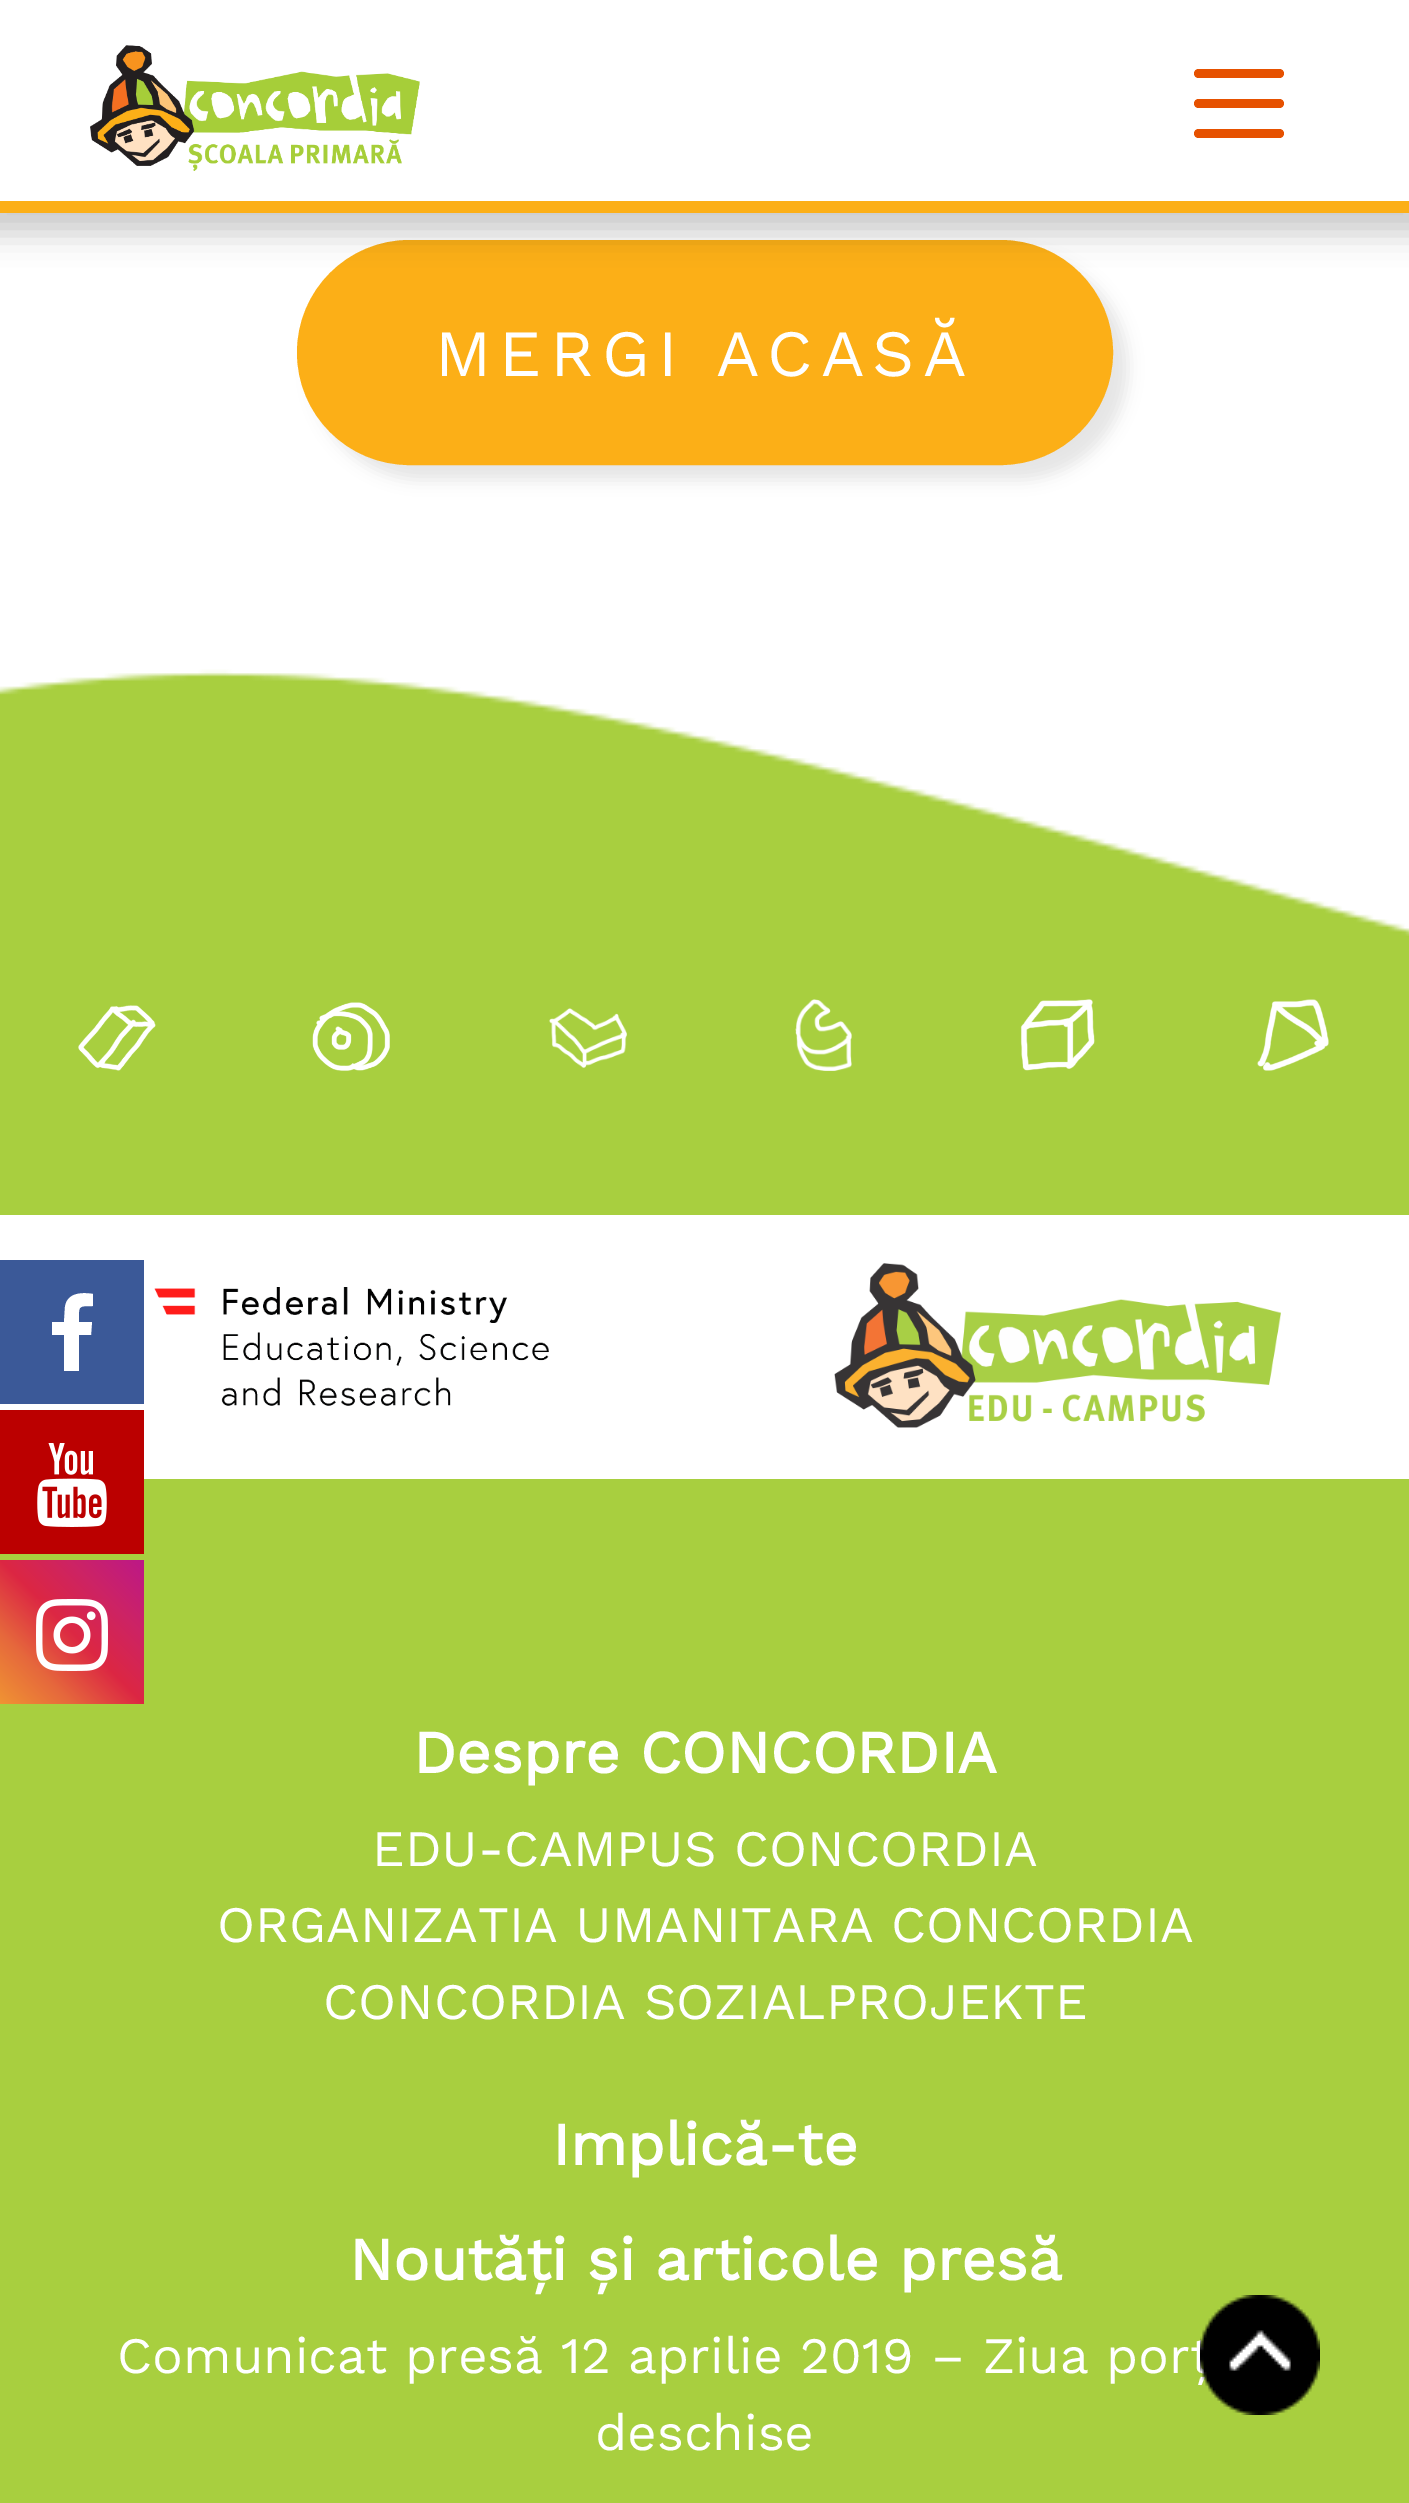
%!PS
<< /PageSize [1409 2503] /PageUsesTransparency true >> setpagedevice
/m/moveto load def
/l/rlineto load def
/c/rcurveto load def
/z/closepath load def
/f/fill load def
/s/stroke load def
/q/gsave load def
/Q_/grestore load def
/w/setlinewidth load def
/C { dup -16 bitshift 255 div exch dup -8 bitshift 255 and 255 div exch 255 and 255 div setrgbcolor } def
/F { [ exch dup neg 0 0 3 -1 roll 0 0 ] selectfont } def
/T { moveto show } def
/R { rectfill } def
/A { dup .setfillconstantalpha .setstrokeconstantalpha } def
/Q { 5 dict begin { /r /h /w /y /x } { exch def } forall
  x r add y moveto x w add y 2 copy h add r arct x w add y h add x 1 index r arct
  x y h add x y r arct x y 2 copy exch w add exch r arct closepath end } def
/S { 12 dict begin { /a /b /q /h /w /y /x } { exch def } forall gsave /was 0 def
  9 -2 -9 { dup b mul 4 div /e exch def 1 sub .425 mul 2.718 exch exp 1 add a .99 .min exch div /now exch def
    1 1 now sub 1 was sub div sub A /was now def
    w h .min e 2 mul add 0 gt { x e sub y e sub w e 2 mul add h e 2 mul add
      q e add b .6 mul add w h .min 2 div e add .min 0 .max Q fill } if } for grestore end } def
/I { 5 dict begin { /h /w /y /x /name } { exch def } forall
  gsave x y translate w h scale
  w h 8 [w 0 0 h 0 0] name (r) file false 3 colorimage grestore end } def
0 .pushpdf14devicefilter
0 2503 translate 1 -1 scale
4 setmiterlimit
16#FFFFFF C
0 0 1409 2503 R
16#000000 C
312 255 816 225 112.5 7.5 .1 S
16#FCAF17 C
298.5 241.5 813 222 111 Q q f Q_
3 w
s
16#000000 C
-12 -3 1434 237 0 15 .2 S
16#FFFFFF C
0 0 1409 201 R
16#FCAF17 C
0 201 1409 12 R
(1.rgb) 90 45 330 126 I
16#E65100 C
1194 69 90 9 4.5 Q f
1194 99 90 9 4.5 Q f
1194 129 90 9 4.5 Q f
/WorkSans-Regular 66 F
16#FFFFFF C
435 376 m 8.1 0 (MERGI ACASĂ) ashow
(2.rgb) 0 669 1409 1834 I
(3.rgb) 78 1005 78 66 I
(4.rgb) 312 1002 78 69 I
(5.rgb) 549 1008 78 60 I
(6.rgb) 795 999 57 72 I
(7.rgb) 1020 999 75 72 I
(8.rgb) 1257 999 72 72 I
0 1215 1409 264 R
(9.rgb) 154 1287 395 119 I
(10.rgb) 834 1263 447 165 I
16#3B5998 C
0 1260 144 144 R
16#FFFFFF C
93 1294 m 0 12 l -16 0 -14 0 -14 16 c 13 0 l -1 13 l -12 0 l 0 36 l -15 0 l 0 -36 l -12 0 l 0 -13 l 12 0 l 1 -15 l 2 -14 16 -15 28 -13 c z f
16#BB0000 C
0 1410 144 144 R
(11.rgb) 37 1443 70 84 I
q 0 1560 m 144 0 l 0 144 l -144 0 l z clip newpath
<< /ShadingType 2 /ColorSpace /DeviceRGB /Coords [0 1704 144 1560] /Extend [true true] /Function << /FunctionType 3 /Domain [0 1] /Functions [<< /FunctionType 2 /Domain [0 1] /C0 [.941 .58 .2] /C1 [.902 .408 .235] /N 1 >> << /FunctionType 2 /Domain [0 1] /C0 [.902 .408 .235] /C1 [.863 .153 .263] /N 1 >> << /FunctionType 2 /Domain [0 1] /C0 [.863 .153 .263] /C1 [.8 .137 .4] /N 1 >> << /FunctionType 2 /Domain [0 1] /C0 [.8 .137 .4] /C1 [.737 .094 .533] /N 1 >>] /Bounds [.25 .5 .75] /Encode [0 1 0 1 0 1 0 1] >> >> shfill Q_
(12.rgb) 36 1599 72 72 I
/WorkSans-Bold 60 F
16#FFFFFF C
(Despre CONCORDIA) 413 1773 T
/WorkSans-Regular 51 F
(EDU-CAMPUS CONCORDIA) 372 1866 T
(ORGANIZATIA UMANITARA CONCORDIA) 217 1942 T
(CONCORDIA SOZIALPROJEKTE) 323 2019 T
/WorkSans-Bold 60 F
(Implică-te) 552 2165 T
(Noutăți și articole presă) 349 2280 T
/WorkSans-Regular 51 F
(Comunicat presă 12 aprilie 2019 – Ziua porț) 117 2373 T
(deschise) 595 2450 T
(13.rgb) 1200 2295 120 120 I
.poppdf14devicefilter showpage
